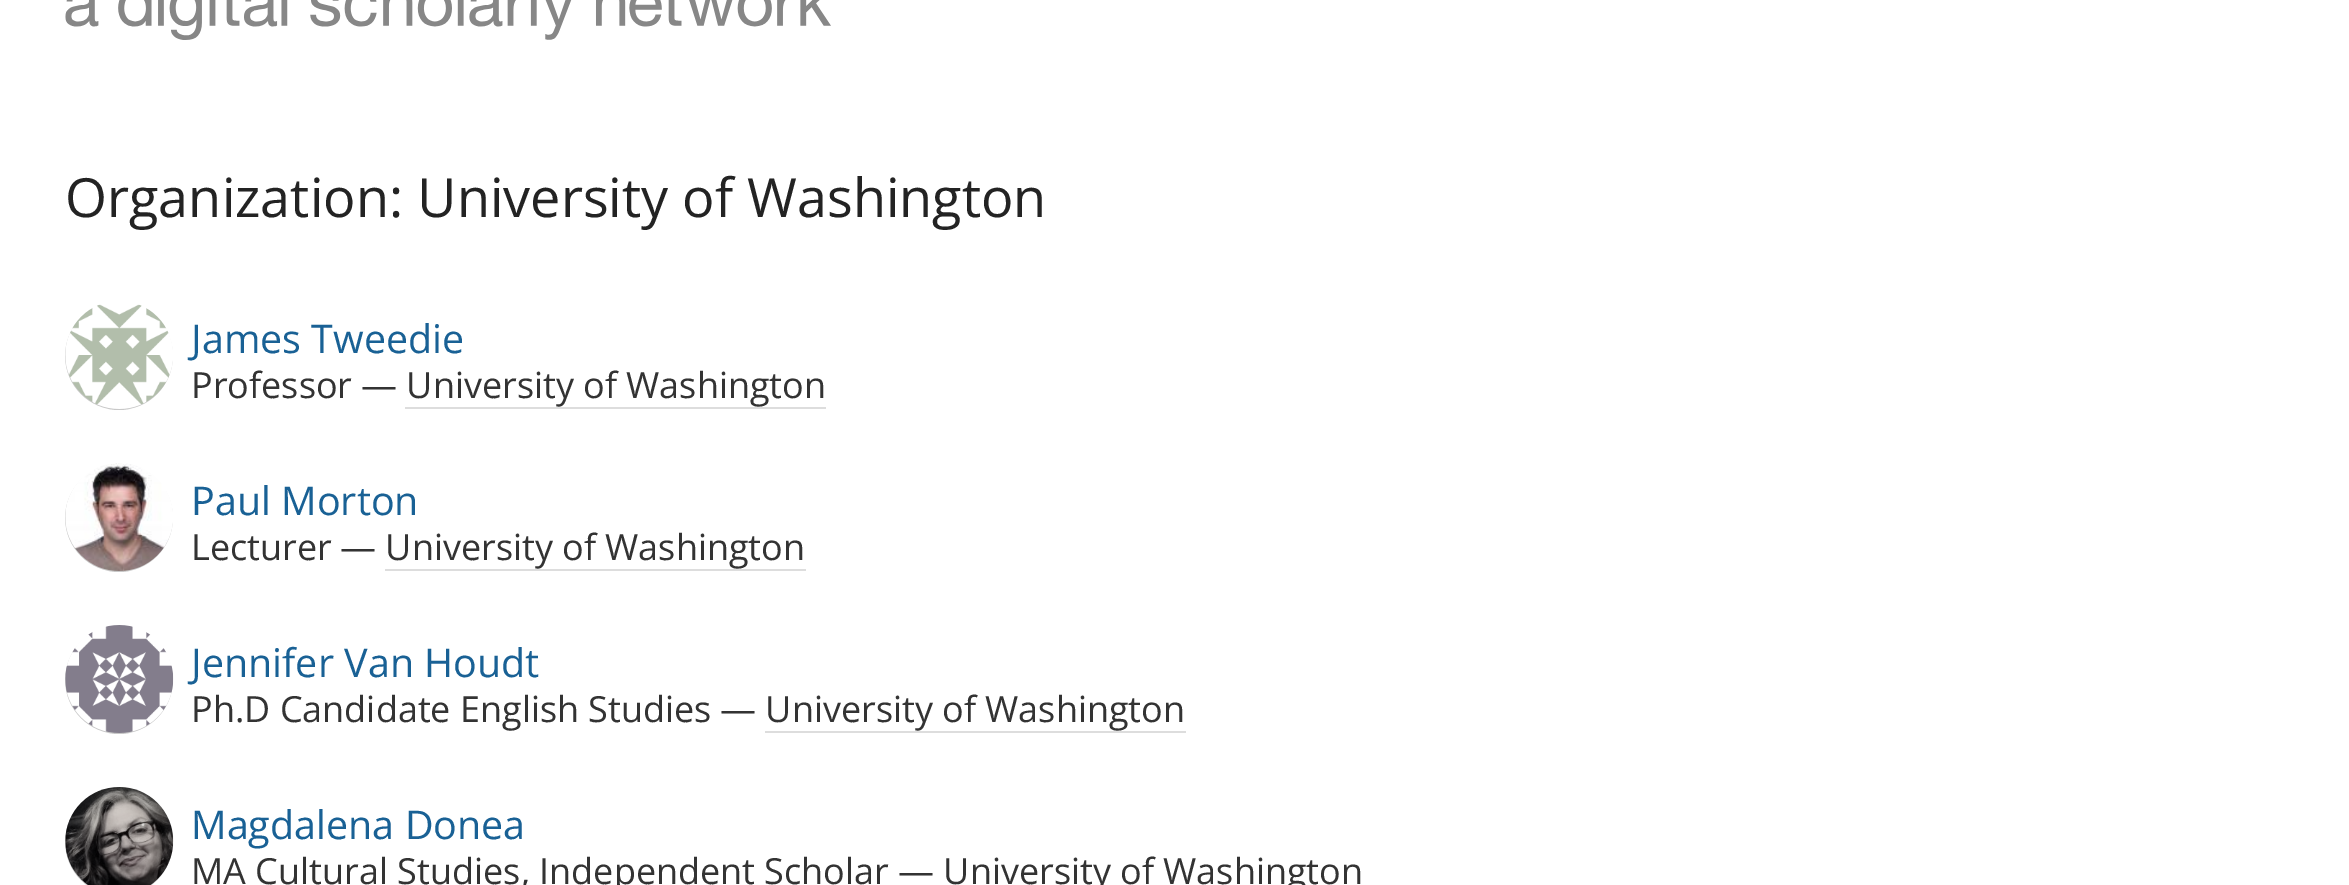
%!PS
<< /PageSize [2349 885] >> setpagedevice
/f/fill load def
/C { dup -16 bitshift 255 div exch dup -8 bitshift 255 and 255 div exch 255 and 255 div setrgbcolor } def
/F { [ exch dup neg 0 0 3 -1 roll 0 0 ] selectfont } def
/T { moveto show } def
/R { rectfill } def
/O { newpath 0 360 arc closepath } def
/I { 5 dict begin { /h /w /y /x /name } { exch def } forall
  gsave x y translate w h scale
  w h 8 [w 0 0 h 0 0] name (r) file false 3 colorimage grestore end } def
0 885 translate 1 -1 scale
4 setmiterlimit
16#FFFFFF C
0 0 2349 885 R
(1.rgb) 65 0 766 40 I
/OpenSans-Regular 54 F
16#232323 C
(Organization: University of Washington) 65 217 T
16#C8C8C8 C
119 356 54 O f
(2.rgb) 65 302 108 107 I
/OpenSans-Regular 39.5 F
16#196195 C
(James Tweedie) 191 353 T
/OpenSans-Regular 36 F
16#333333 C
(Professor) 191 398 T
(— University of Washington) 361 398 T
16#DDDDDD C
405 407 421 2 R
16#C8C8C8 C
119 518 54 O f
(3.rgb) 65 463 108 108 I
/OpenSans-Regular 39.5 F
16#196195 C
(Paul Morton) 191 515 T
/OpenSans-Regular 36 F
16#333333 C
(Lecturer) 191 560 T
(— University of Washington) 340 560 T
16#DDDDDD C
385 569 421 2 R
16#C8C8C8 C
119 680 54 O f
(4.rgb) 65 625 109 108 I
/OpenSans-Regular 39.5 F
16#196195 C
(Jennifer Van Houdt) 191 677 T
/OpenSans-Regular 36 F
16#333333 C
(Ph.D Candidate English Studies) 191 722 T
(— University of Washington) 720 722 T
16#DDDDDD C
765 731 421 2 R
16#C8C8C8 C
119 842 54 O f
(5.rgb) 65 787 109 98 I
/OpenSans-Regular 39.5 F
16#196195 C
(Magdalena Donea) 191 839 T
/OpenSans-Regular 36 F
16#333333 C
(MA Cultural Studies, Independent Scholar) 191 884 T
(— University of Washington) 898 884 T
showpage
